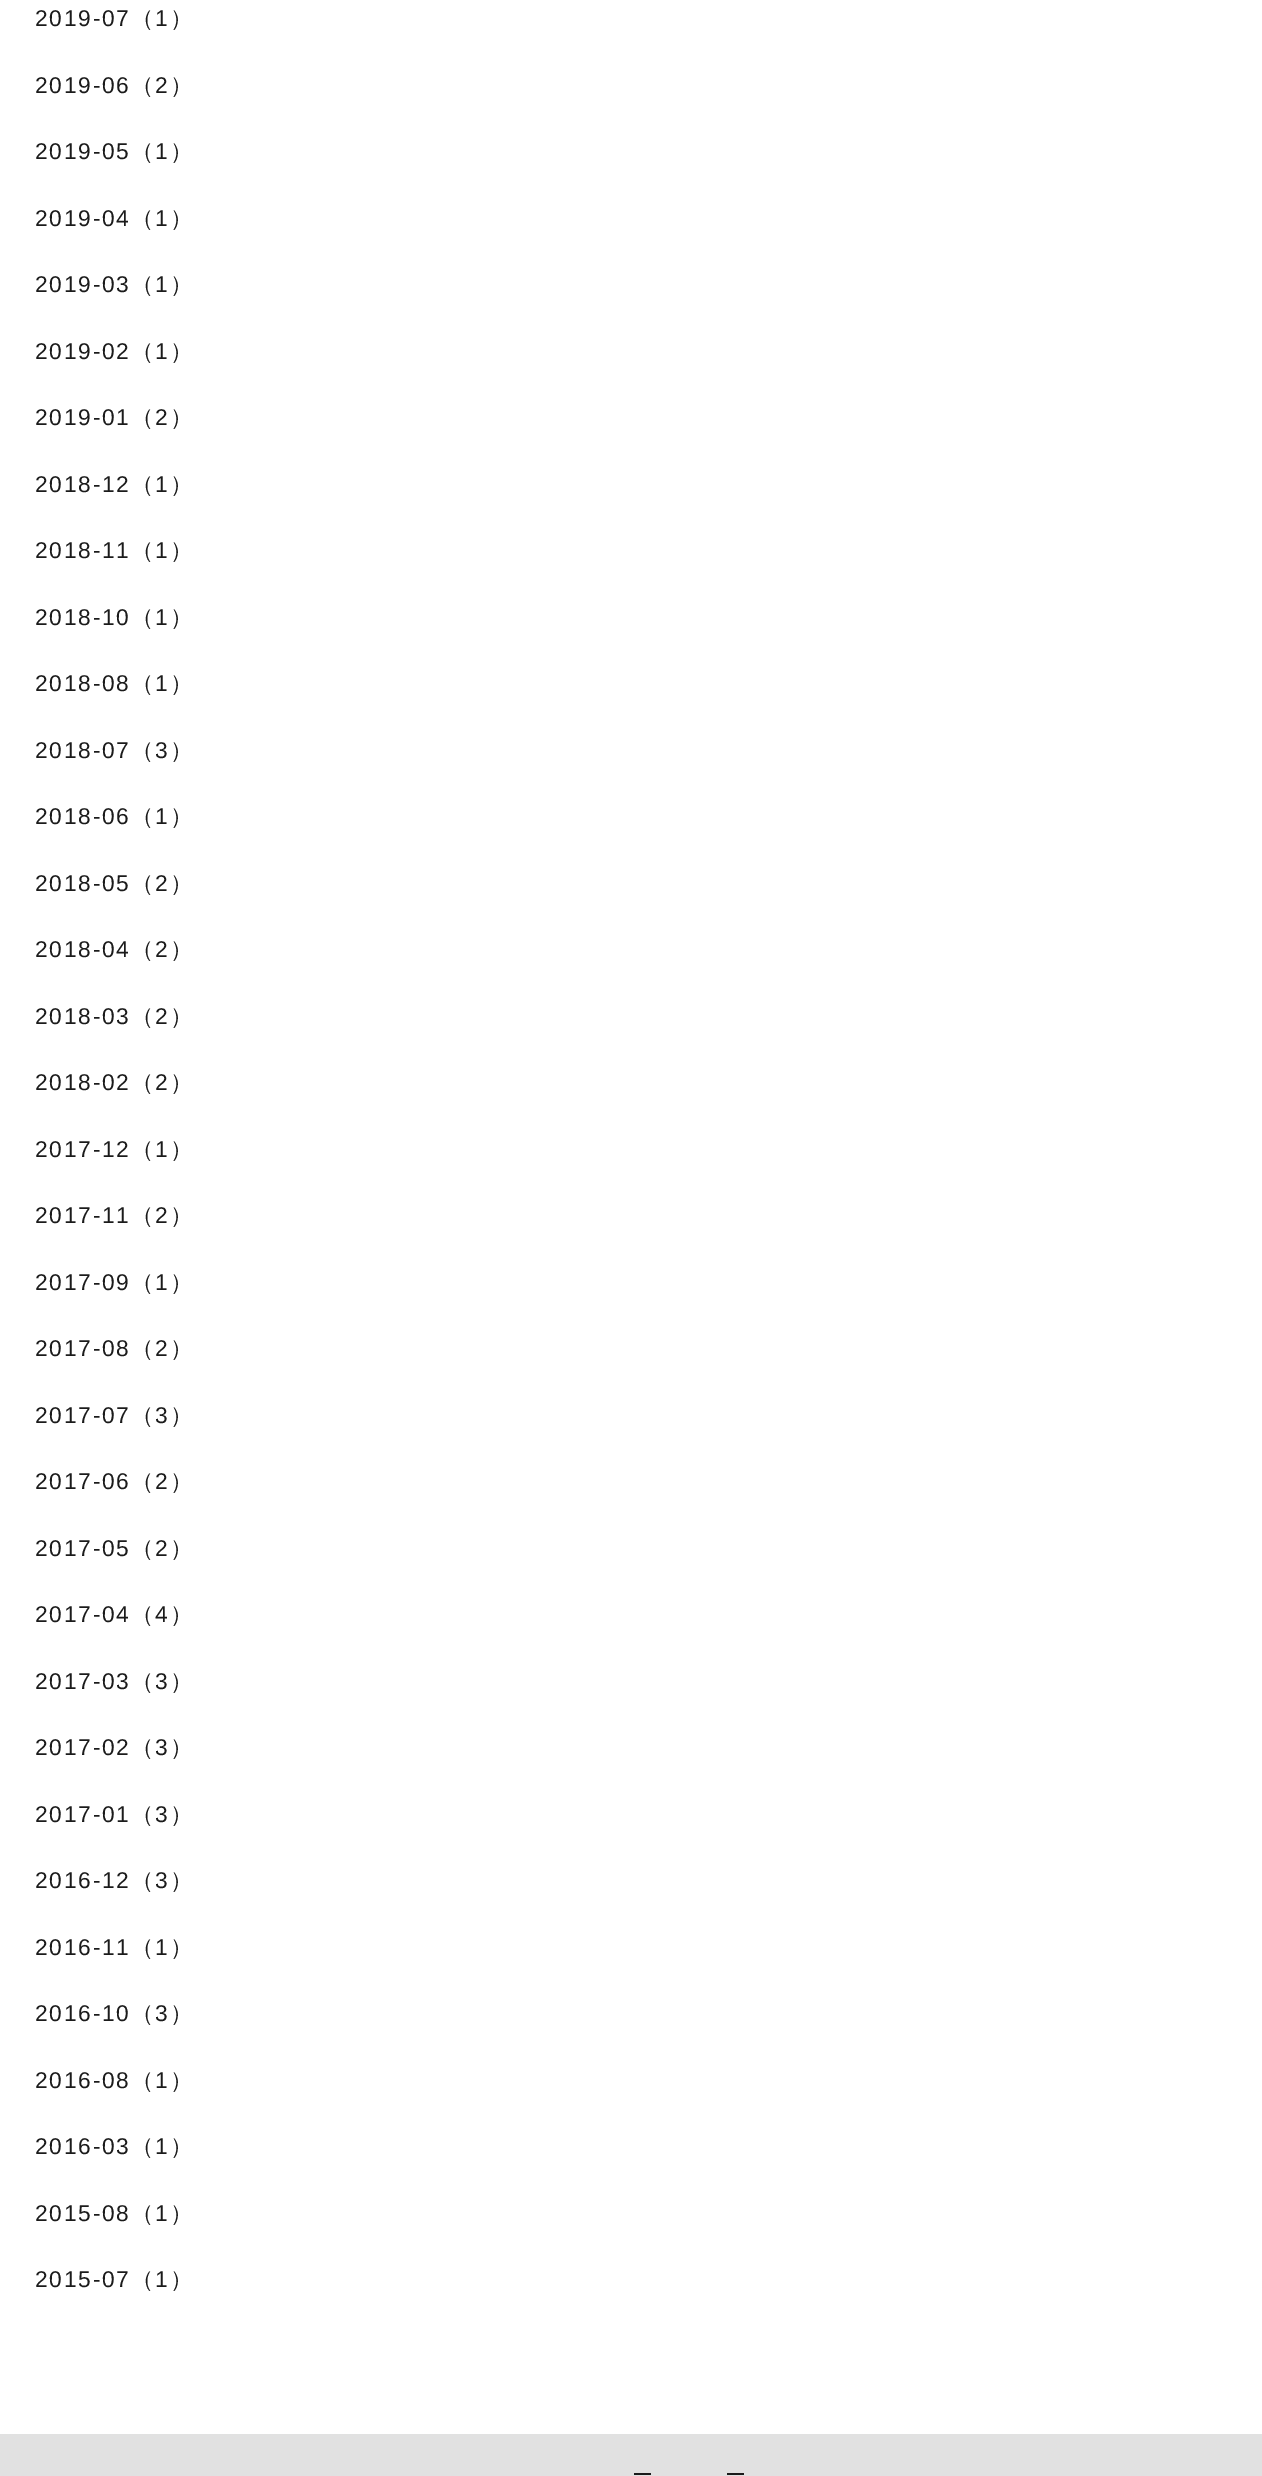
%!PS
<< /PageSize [1262 2476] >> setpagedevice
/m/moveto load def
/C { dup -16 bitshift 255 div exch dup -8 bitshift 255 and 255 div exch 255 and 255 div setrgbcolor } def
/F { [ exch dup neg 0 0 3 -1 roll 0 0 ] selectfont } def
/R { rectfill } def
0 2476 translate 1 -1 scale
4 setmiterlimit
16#FFFFFF C
0 0 1262 2476 R
/LiberationSans-Regular 22.75 F
16#1B1B1B C
35 26 m 1.75 0 (2019-07) ashow
/WenQuanYiZenHei-Medium 22.75 F
131 26 m 1.75 0 (（) ashow
/LiberationSans-Regular 22.75 F
155 26 m 1.75 0 (1) ashow
/WenQuanYiZenHei-Medium 22.75 F
170 26 m 1.75 0 (）) ashow
/LiberationSans-Regular 22.75 F
35 93 m 1.75 0 (2019-06) ashow
/WenQuanYiZenHei-Medium 22.75 F
131 93 m 1.75 0 (（) ashow
/LiberationSans-Regular 22.75 F
155 93 m 1.75 0 (2) ashow
/WenQuanYiZenHei-Medium 22.75 F
170 93 m 1.75 0 (）) ashow
/LiberationSans-Regular 22.75 F
35 159 m 1.75 0 (2019-05) ashow
/WenQuanYiZenHei-Medium 22.75 F
131 159 m 1.75 0 (（) ashow
/LiberationSans-Regular 22.75 F
155 159 m 1.75 0 (1) ashow
/WenQuanYiZenHei-Medium 22.75 F
170 159 m 1.75 0 (）) ashow
/LiberationSans-Regular 22.75 F
35 226 m 1.75 0 (2019-04) ashow
/WenQuanYiZenHei-Medium 22.75 F
131 226 m 1.75 0 (（) ashow
/LiberationSans-Regular 22.75 F
155 226 m 1.75 0 (1) ashow
/WenQuanYiZenHei-Medium 22.75 F
170 226 m 1.75 0 (）) ashow
/LiberationSans-Regular 22.75 F
35 292 m 1.75 0 (2019-03) ashow
/WenQuanYiZenHei-Medium 22.75 F
131 292 m 1.75 0 (（) ashow
/LiberationSans-Regular 22.75 F
155 292 m 1.75 0 (1) ashow
/WenQuanYiZenHei-Medium 22.75 F
170 292 m 1.75 0 (）) ashow
/LiberationSans-Regular 22.75 F
35 359 m 1.75 0 (2019-02) ashow
/WenQuanYiZenHei-Medium 22.75 F
131 359 m 1.75 0 (（) ashow
/LiberationSans-Regular 22.75 F
155 359 m 1.75 0 (1) ashow
/WenQuanYiZenHei-Medium 22.75 F
170 359 m 1.75 0 (）) ashow
/LiberationSans-Regular 22.75 F
35 425 m 1.75 0 (2019-01) ashow
/WenQuanYiZenHei-Medium 22.75 F
131 425 m 1.75 0 (（) ashow
/LiberationSans-Regular 22.75 F
155 425 m 1.75 0 (2) ashow
/WenQuanYiZenHei-Medium 22.75 F
170 425 m 1.75 0 (）) ashow
/LiberationSans-Regular 22.75 F
35 492 m 1.75 0 (2018-12) ashow
/WenQuanYiZenHei-Medium 22.75 F
131 492 m 1.75 0 (（) ashow
/LiberationSans-Regular 22.75 F
155 492 m 1.75 0 (1) ashow
/WenQuanYiZenHei-Medium 22.75 F
170 492 m 1.75 0 (）) ashow
/LiberationSans-Regular 22.75 F
35 558 m 1.75 0 (2018-11) ashow
/WenQuanYiZenHei-Medium 22.75 F
131 558 m 1.75 0 (（) ashow
/LiberationSans-Regular 22.75 F
155 558 m 1.75 0 (1) ashow
/WenQuanYiZenHei-Medium 22.75 F
170 558 m 1.75 0 (）) ashow
/LiberationSans-Regular 22.75 F
35 625 m 1.75 0 (2018-10) ashow
/WenQuanYiZenHei-Medium 22.75 F
131 625 m 1.75 0 (（) ashow
/LiberationSans-Regular 22.75 F
155 625 m 1.75 0 (1) ashow
/WenQuanYiZenHei-Medium 22.75 F
170 625 m 1.75 0 (）) ashow
/LiberationSans-Regular 22.75 F
35 691 m 1.75 0 (2018-08) ashow
/WenQuanYiZenHei-Medium 22.75 F
131 691 m 1.75 0 (（) ashow
/LiberationSans-Regular 22.75 F
155 691 m 1.75 0 (1) ashow
/WenQuanYiZenHei-Medium 22.75 F
170 691 m 1.75 0 (）) ashow
/LiberationSans-Regular 22.75 F
35 758 m 1.75 0 (2018-07) ashow
/WenQuanYiZenHei-Medium 22.75 F
131 758 m 1.75 0 (（) ashow
/LiberationSans-Regular 22.75 F
155 758 m 1.75 0 (3) ashow
/WenQuanYiZenHei-Medium 22.75 F
170 758 m 1.75 0 (）) ashow
/LiberationSans-Regular 22.75 F
35 824 m 1.75 0 (2018-06) ashow
/WenQuanYiZenHei-Medium 22.75 F
131 824 m 1.75 0 (（) ashow
/LiberationSans-Regular 22.75 F
155 824 m 1.75 0 (1) ashow
/WenQuanYiZenHei-Medium 22.75 F
170 824 m 1.75 0 (）) ashow
/LiberationSans-Regular 22.75 F
35 891 m 1.75 0 (2018-05) ashow
/WenQuanYiZenHei-Medium 22.75 F
131 891 m 1.75 0 (（) ashow
/LiberationSans-Regular 22.75 F
155 891 m 1.75 0 (2) ashow
/WenQuanYiZenHei-Medium 22.75 F
170 891 m 1.75 0 (）) ashow
/LiberationSans-Regular 22.75 F
35 957 m 1.75 0 (2018-04) ashow
/WenQuanYiZenHei-Medium 22.75 F
131 957 m 1.75 0 (（) ashow
/LiberationSans-Regular 22.75 F
155 957 m 1.75 0 (2) ashow
/WenQuanYiZenHei-Medium 22.75 F
170 957 m 1.75 0 (）) ashow
/LiberationSans-Regular 22.75 F
35 1024 m 1.75 0 (2018-03) ashow
/WenQuanYiZenHei-Medium 22.75 F
131 1024 m 1.75 0 (（) ashow
/LiberationSans-Regular 22.75 F
155 1024 m 1.75 0 (2) ashow
/WenQuanYiZenHei-Medium 22.75 F
170 1024 m 1.75 0 (）) ashow
/LiberationSans-Regular 22.75 F
35 1090 m 1.75 0 (2018-02) ashow
/WenQuanYiZenHei-Medium 22.75 F
131 1090 m 1.75 0 (（) ashow
/LiberationSans-Regular 22.75 F
155 1090 m 1.75 0 (2) ashow
/WenQuanYiZenHei-Medium 22.75 F
170 1090 m 1.75 0 (）) ashow
/LiberationSans-Regular 22.75 F
35 1157 m 1.75 0 (2017-12) ashow
/WenQuanYiZenHei-Medium 22.75 F
131 1157 m 1.75 0 (（) ashow
/LiberationSans-Regular 22.75 F
155 1157 m 1.75 0 (1) ashow
/WenQuanYiZenHei-Medium 22.75 F
170 1157 m 1.75 0 (）) ashow
/LiberationSans-Regular 22.75 F
35 1223 m 1.75 0 (2017-11) ashow
/WenQuanYiZenHei-Medium 22.75 F
131 1223 m 1.75 0 (（) ashow
/LiberationSans-Regular 22.75 F
155 1223 m 1.75 0 (2) ashow
/WenQuanYiZenHei-Medium 22.75 F
170 1223 m 1.75 0 (）) ashow
/LiberationSans-Regular 22.75 F
35 1290 m 1.75 0 (2017-09) ashow
/WenQuanYiZenHei-Medium 22.75 F
131 1290 m 1.75 0 (（) ashow
/LiberationSans-Regular 22.75 F
155 1290 m 1.75 0 (1) ashow
/WenQuanYiZenHei-Medium 22.75 F
170 1290 m 1.75 0 (）) ashow
/LiberationSans-Regular 22.75 F
35 1356 m 1.75 0 (2017-08) ashow
/WenQuanYiZenHei-Medium 22.75 F
131 1356 m 1.75 0 (（) ashow
/LiberationSans-Regular 22.75 F
155 1356 m 1.75 0 (2) ashow
/WenQuanYiZenHei-Medium 22.75 F
170 1356 m 1.75 0 (）) ashow
/LiberationSans-Regular 22.75 F
35 1423 m 1.75 0 (2017-07) ashow
/WenQuanYiZenHei-Medium 22.75 F
131 1423 m 1.75 0 (（) ashow
/LiberationSans-Regular 22.75 F
155 1423 m 1.75 0 (3) ashow
/WenQuanYiZenHei-Medium 22.75 F
170 1423 m 1.75 0 (）) ashow
/LiberationSans-Regular 22.75 F
35 1489 m 1.75 0 (2017-06) ashow
/WenQuanYiZenHei-Medium 22.75 F
131 1489 m 1.75 0 (（) ashow
/LiberationSans-Regular 22.75 F
155 1489 m 1.75 0 (2) ashow
/WenQuanYiZenHei-Medium 22.75 F
170 1489 m 1.75 0 (）) ashow
/LiberationSans-Regular 22.75 F
35 1556 m 1.75 0 (2017-05) ashow
/WenQuanYiZenHei-Medium 22.75 F
131 1556 m 1.75 0 (（) ashow
/LiberationSans-Regular 22.75 F
155 1556 m 1.75 0 (2) ashow
/WenQuanYiZenHei-Medium 22.75 F
170 1556 m 1.75 0 (）) ashow
/LiberationSans-Regular 22.75 F
35 1622 m 1.75 0 (2017-04) ashow
/WenQuanYiZenHei-Medium 22.75 F
131 1622 m 1.75 0 (（) ashow
/LiberationSans-Regular 22.75 F
155 1622 m 1.75 0 (4) ashow
/WenQuanYiZenHei-Medium 22.75 F
170 1622 m 1.75 0 (）) ashow
/LiberationSans-Regular 22.75 F
35 1689 m 1.75 0 (2017-03) ashow
/WenQuanYiZenHei-Medium 22.75 F
131 1689 m 1.75 0 (（) ashow
/LiberationSans-Regular 22.75 F
155 1689 m 1.75 0 (3) ashow
/WenQuanYiZenHei-Medium 22.75 F
170 1689 m 1.75 0 (）) ashow
/LiberationSans-Regular 22.75 F
35 1755 m 1.75 0 (2017-02) ashow
/WenQuanYiZenHei-Medium 22.75 F
131 1755 m 1.75 0 (（) ashow
/LiberationSans-Regular 22.75 F
155 1755 m 1.75 0 (3) ashow
/WenQuanYiZenHei-Medium 22.75 F
170 1755 m 1.75 0 (）) ashow
/LiberationSans-Regular 22.75 F
35 1822 m 1.75 0 (2017-01) ashow
/WenQuanYiZenHei-Medium 22.75 F
131 1822 m 1.75 0 (（) ashow
/LiberationSans-Regular 22.75 F
155 1822 m 1.75 0 (3) ashow
/WenQuanYiZenHei-Medium 22.75 F
170 1822 m 1.75 0 (）) ashow
/LiberationSans-Regular 22.75 F
35 1888 m 1.75 0 (2016-12) ashow
/WenQuanYiZenHei-Medium 22.75 F
131 1888 m 1.75 0 (（) ashow
/LiberationSans-Regular 22.75 F
155 1888 m 1.75 0 (3) ashow
/WenQuanYiZenHei-Medium 22.75 F
170 1888 m 1.75 0 (）) ashow
/LiberationSans-Regular 22.75 F
35 1955 m 1.75 0 (2016-11) ashow
/WenQuanYiZenHei-Medium 22.75 F
131 1955 m 1.75 0 (（) ashow
/LiberationSans-Regular 22.75 F
155 1955 m 1.75 0 (1) ashow
/WenQuanYiZenHei-Medium 22.75 F
170 1955 m 1.75 0 (）) ashow
/LiberationSans-Regular 22.75 F
35 2021 m 1.75 0 (2016-10) ashow
/WenQuanYiZenHei-Medium 22.75 F
131 2021 m 1.75 0 (（) ashow
/LiberationSans-Regular 22.75 F
155 2021 m 1.75 0 (3) ashow
/WenQuanYiZenHei-Medium 22.75 F
170 2021 m 1.75 0 (）) ashow
/LiberationSans-Regular 22.75 F
35 2088 m 1.75 0 (2016-08) ashow
/WenQuanYiZenHei-Medium 22.75 F
131 2088 m 1.75 0 (（) ashow
/LiberationSans-Regular 22.75 F
155 2088 m 1.75 0 (1) ashow
/WenQuanYiZenHei-Medium 22.75 F
170 2088 m 1.75 0 (）) ashow
/LiberationSans-Regular 22.75 F
35 2154 m 1.75 0 (2016-03) ashow
/WenQuanYiZenHei-Medium 22.75 F
131 2154 m 1.75 0 (（) ashow
/LiberationSans-Regular 22.75 F
155 2154 m 1.75 0 (1) ashow
/WenQuanYiZenHei-Medium 22.75 F
170 2154 m 1.75 0 (）) ashow
/LiberationSans-Regular 22.75 F
35 2221 m 1.75 0 (2015-08) ashow
/WenQuanYiZenHei-Medium 22.75 F
131 2221 m 1.75 0 (（) ashow
/LiberationSans-Regular 22.75 F
155 2221 m 1.75 0 (1) ashow
/WenQuanYiZenHei-Medium 22.75 F
170 2221 m 1.75 0 (）) ashow
/LiberationSans-Regular 22.75 F
35 2287 m 1.75 0 (2015-07) ashow
/WenQuanYiZenHei-Medium 22.75 F
131 2287 m 1.75 0 (（) ashow
/LiberationSans-Regular 22.75 F
155 2287 m 1.75 0 (1) ashow
/WenQuanYiZenHei-Medium 22.75 F
170 2287 m 1.75 0 (）) ashow
16#E1E1E1 C
0 2434 1262 42 R
/WenQuanYiZenHei-Medium 21 F
16#1B1B1B C
632 2482 m 1.75 0 (ー) ashow
725 2482 m 1.75 0 (ー) ashow
showpage
